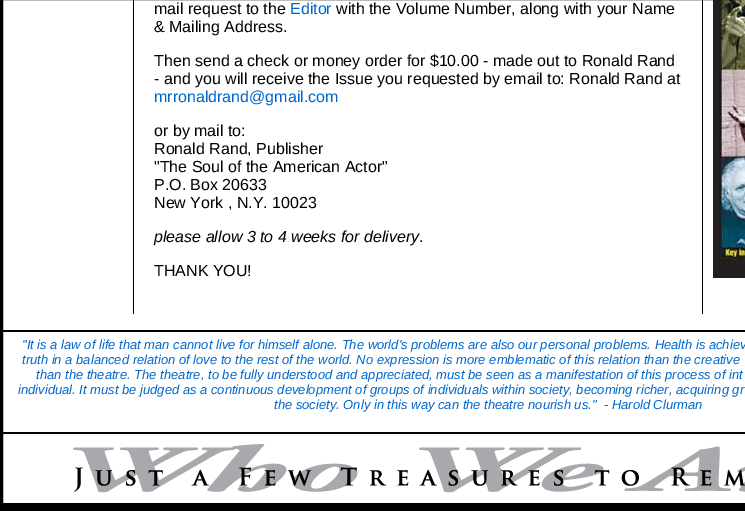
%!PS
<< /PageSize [745 511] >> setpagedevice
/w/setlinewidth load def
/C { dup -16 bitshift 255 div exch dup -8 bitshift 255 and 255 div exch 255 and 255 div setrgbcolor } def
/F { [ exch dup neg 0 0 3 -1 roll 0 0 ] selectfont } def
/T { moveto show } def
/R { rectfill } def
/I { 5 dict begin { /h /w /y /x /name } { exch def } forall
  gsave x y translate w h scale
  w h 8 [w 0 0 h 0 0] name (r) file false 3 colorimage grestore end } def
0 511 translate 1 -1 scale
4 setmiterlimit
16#FFFFFF C
0 0 745 511 R
16#000000 C
3 w
1.5 -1.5 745 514 rectstroke
702 0 1 314 R
133 0 1 314 R
/LiberationSans-Regular 16 F
(mail request to the) 154 14 T
16#0066CC C
(Editor) 290 14 T
16#000000 C
(with the Volume Number, along with your Name) 336 14 T
(& Mailing Address.) 154 32 T
(Then send a check or money order for $10.00 - made out to Ronald Rand) 154 66 T
(- and you will receive the Issue you requested by email to: Ronald Rand at) 154 84 T
16#0066CC C
(mrronaldrand@gmail.com) 154 102 T
16#000000 C
(or by mail to:) 154 136 T
(Ronald Rand, Publisher) 154 154 T
("The Soul of the American Actor") 154 172 T
(P.O. Box 20633) 154 190 T
(New York , N.Y. 10023) 154 208 T
/LiberationSans-Italic 16 F
(please allow 3 to 4 weeks for delivery) 154 242 T
/LiberationSans-Regular 16 F
(.) 419 242 T
(THANK YOU!) 154 276 T
(1.rgb) 713 0 32 278 I
3 330 742 2 R
3 432 742 2 R
/LiberationSans-Italic 13 F
16#0066CC C
("It is a law of life that man cannot live for himself alone. The world's problems are also our personal problems. Health is achiev) 22 349 T
(truth in a balanced relation of love to the rest of the world. No expression is more emblematic of this relation than the creative) 22 364 T
(than the theatre. The theatre, to be fully understood and appreciated, must be seen as a manifestation of this process of int) 36 379 T
(individual. It must be judged as a continuous development of groups of individuals within society, becoming richer, acquiring gr) 18 394 T
(the society. Only in this way can the theatre nourish us."  - Harold Clurman) 274 409 T
(2.rgb) 73 444 672 49 I
16#000000 C
3 503 742 8 R
showpage
